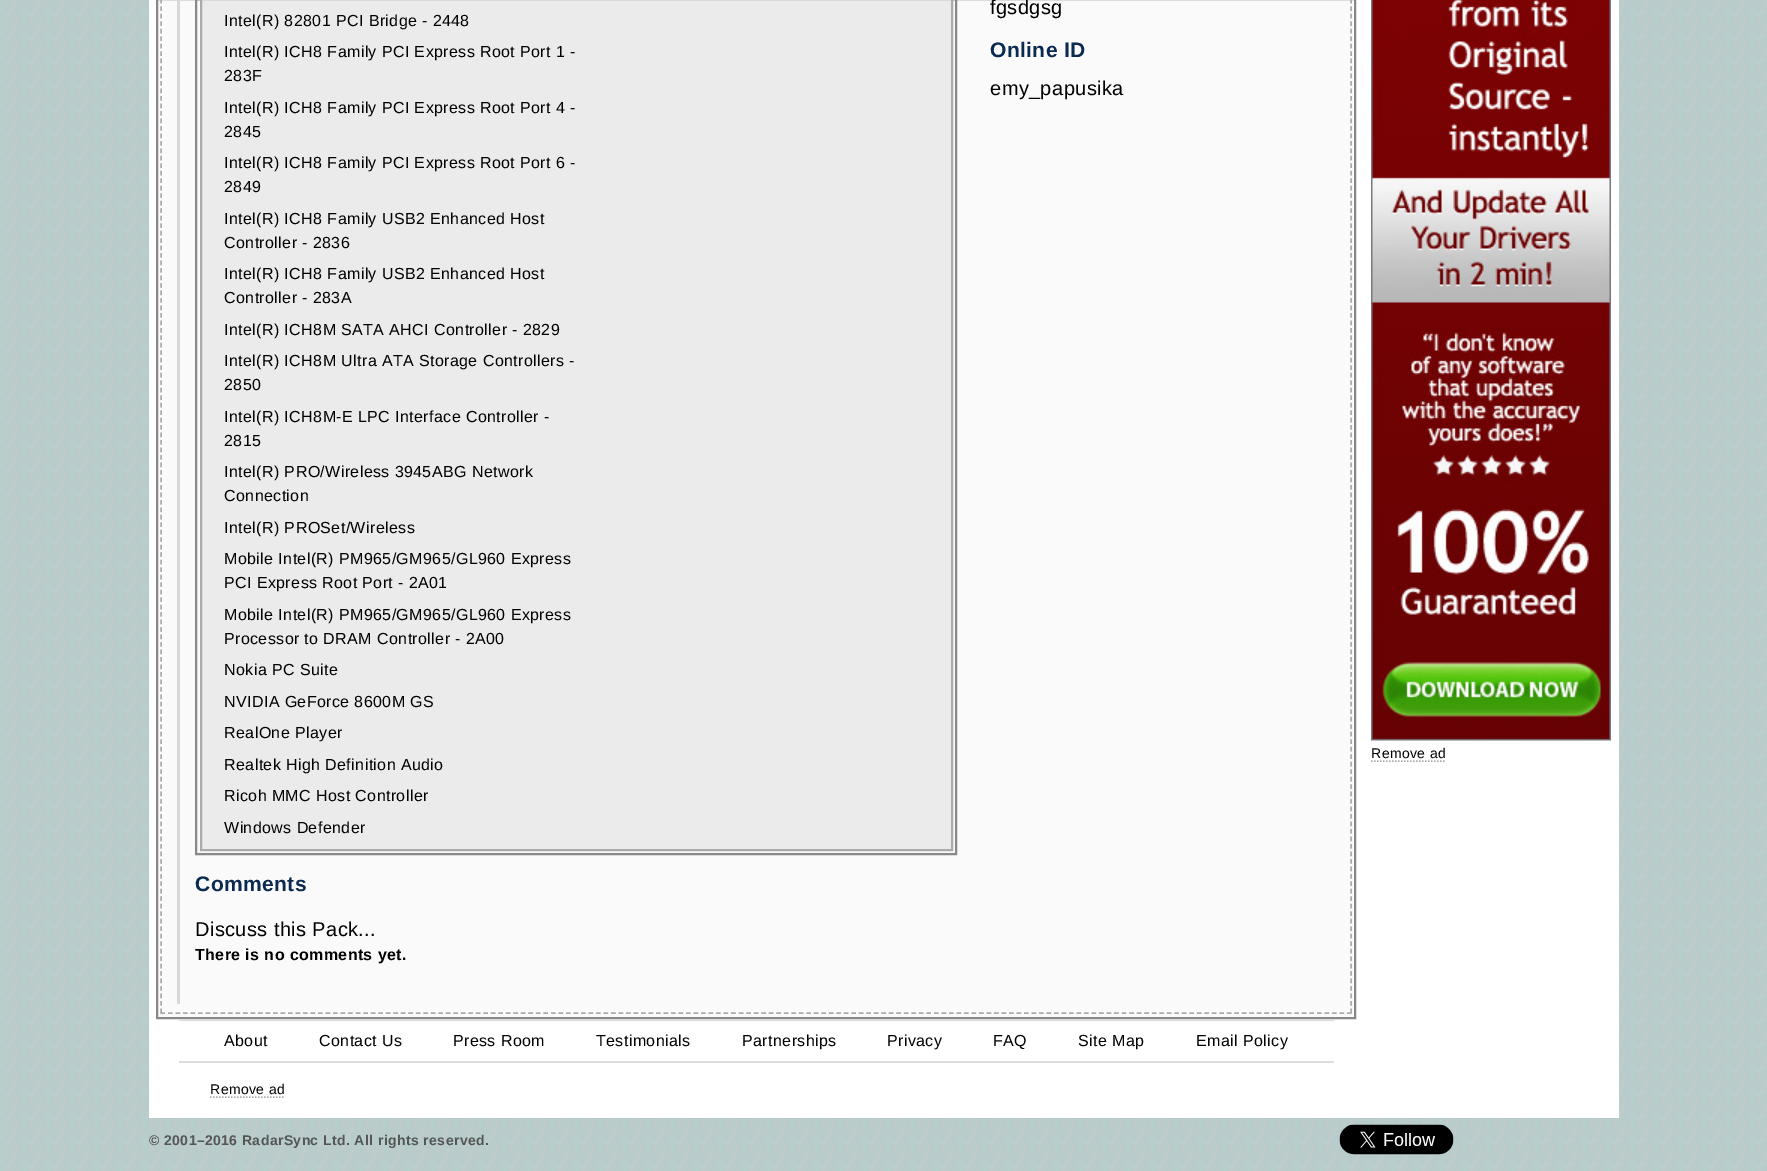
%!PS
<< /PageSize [1767 1171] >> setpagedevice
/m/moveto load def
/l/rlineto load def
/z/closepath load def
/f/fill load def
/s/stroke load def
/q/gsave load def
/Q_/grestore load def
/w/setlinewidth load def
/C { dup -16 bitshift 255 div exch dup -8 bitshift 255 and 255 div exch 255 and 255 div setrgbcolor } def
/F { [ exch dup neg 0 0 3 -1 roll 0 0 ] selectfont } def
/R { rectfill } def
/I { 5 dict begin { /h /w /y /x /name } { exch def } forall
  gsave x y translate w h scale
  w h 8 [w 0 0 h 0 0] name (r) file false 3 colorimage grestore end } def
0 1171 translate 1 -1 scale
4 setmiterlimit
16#B7CECD C
0 0 1767 1171 R
(1.rgb) 6 0 1761 1171 I
16#FFFFFF C
149 0 1470 1118 R
16#FAFAFA C
157 -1 m 1198 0 l 0 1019 l -1198 0 l z q f Q_
16#888888 C
2 w
s
16#AAAAAA C
1.5 w
[4.5 2.98] 0 setdash
1351 -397.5 m 0 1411.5 l s
[4.5 3.01] 0 setdash
160.5 1013 m 1191 0 l s
[4.5 2.98] 0 setdash
161 -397.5 m 0 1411.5 l s
16#D8D8D8 C
177 0 3 1004 R
16#888888 C
2 w
[] 0 setdash
196 -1 760 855 rectstroke
16#EBEBEB C
201 -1 m 751 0 l 0 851 l -751 0 l z q f Q_
16#AAAAAA C
s
/LiberationSans-Regular 16 F
16#000000 C
224 26 m .4 0 (Intel\(R\) 82801 PCI Bridge - 2448) ashow
224 57 m .4 0 (Intel\(R\) ICH8 Family PCI Express Root Port 1 -) ashow
224 81 m .4 0 (283F) ashow
224 113 m .4 0 (Intel\(R\) ICH8 Family PCI Express Root Port 4 -) ashow
224 137 m .4 0 (2845) ashow
224 168 m .4 0 (Intel\(R\) ICH8 Family PCI Express Root Port 6 -) ashow
224 192 m .4 0 (2849) ashow
224 224 m .4 0 (Intel\(R\) ICH8 Family USB2 Enhanced Host) ashow
224 248 m .4 0 (Controller - 2836) ashow
224 279 m .4 0 (Intel\(R\) ICH8 Family USB2 Enhanced Host) ashow
224 303 m .4 0 (Controller - 283A) ashow
224 335 m .4 0 (Intel\(R\) ICH8M SATA AHCI Controller - 2829) ashow
224 366 m .4 0 (Intel\(R\) ICH8M Ultra ATA Storage Controllers -) ashow
224 390 m .4 0 (2850) ashow
224 422 m .4 0 (Intel\(R\) ICH8M-E LPC Interface Controller -) ashow
224 446 m .4 0 (2815) ashow
224 477 m .4 0 (Intel\(R\) PRO/Wireless 3945ABG Network) ashow
224 501 m .4 0 (Connection) ashow
224 533 m .4 0 (Intel\(R\) PROSet/Wireless) ashow
224 564 m .4 0 (Mobile Intel\(R\) PM965/GM965/GL960 Express) ashow
224 588 m .4 0 (PCI Express Root Port - 2A01) ashow
224 620 m .4 0 (Mobile Intel\(R\) PM965/GM965/GL960 Express) ashow
224 644 m .4 0 (Processor to DRAM Controller - 2A00) ashow
224 675 m .4 0 (Nokia PC Suite) ashow
224 707 m .4 0 (NVIDIA GeForce 8600M GS) ashow
224 738 m .4 0 (RealOne Player) ashow
224 770 m .4 0 (Realtek High Definition Audio) ashow
224 801 m .4 0 (Ricoh MMC Host Controller) ashow
224 833 m .4 0 (Windows Defender) ashow
/LiberationSans-Bold 21 F
16#0A2A50 C
195 891 m .4 0 (Comments) ashow
/LiberationSans-Regular 20 F
16#000000 C
195 936 m .4 0 (Discuss this Pack...) ashow
/LiberationSans-Bold 16 F
195 960 m .4 0 (There is no comments yet.) ashow
/LiberationSans-Regular 20 F
990 14 m .4 0 (fgsdgsg) ashow
/LiberationSans-Bold 21 F
16#0A2A50 C
990 57 m .4 0 (Online ID) ashow
/LiberationSans-Regular 20 F
16#000000 C
990 95 m .4 0 (emy_papusika) ashow
16#DDDDDD C
179 1019 1155 2 R
179 1061 1155 2 R
/LiberationSans-Regular 16 F
16#000000 C
224 1046 m .4 0 (About) ashow
319 1046 m .4 0 (Contact Us) ashow
453 1046 m .4 0 (Press Room) ashow
596 1046 m .4 0 (Testimonials) ashow
742 1046 m .4 0 (Partnerships) ashow
887 1046 m .4 0 (Privacy) ashow
993 1046 m .4 0 (FAQ) ashow
1078 1046 m .4 0 (Site Map) ashow
1196 1046 m .4 0 (Email Policy) ashow
/LiberationSans-Regular 14 F
210 1094 m .4 0 (Remove ad) ashow
16#AAAAAA C
1.5 w
[1.5 1.5] 0 setdash
210 1097 m 75 0 l s
(2.rgb) 1371 0 240 741 I
16#000000 C
1371 758 m .4 0 (Remove ad) ashow
16#AAAAAA C
1371 761 m 75 0 l s
/LiberationSans-Bold 14 F
16#555555 C
149 1145 m .4 0 (© 2001–2016 RadarSync Ltd. All rights reserved.) ashow
(3.rgb) 1339 1124 115 31 I
showpage
